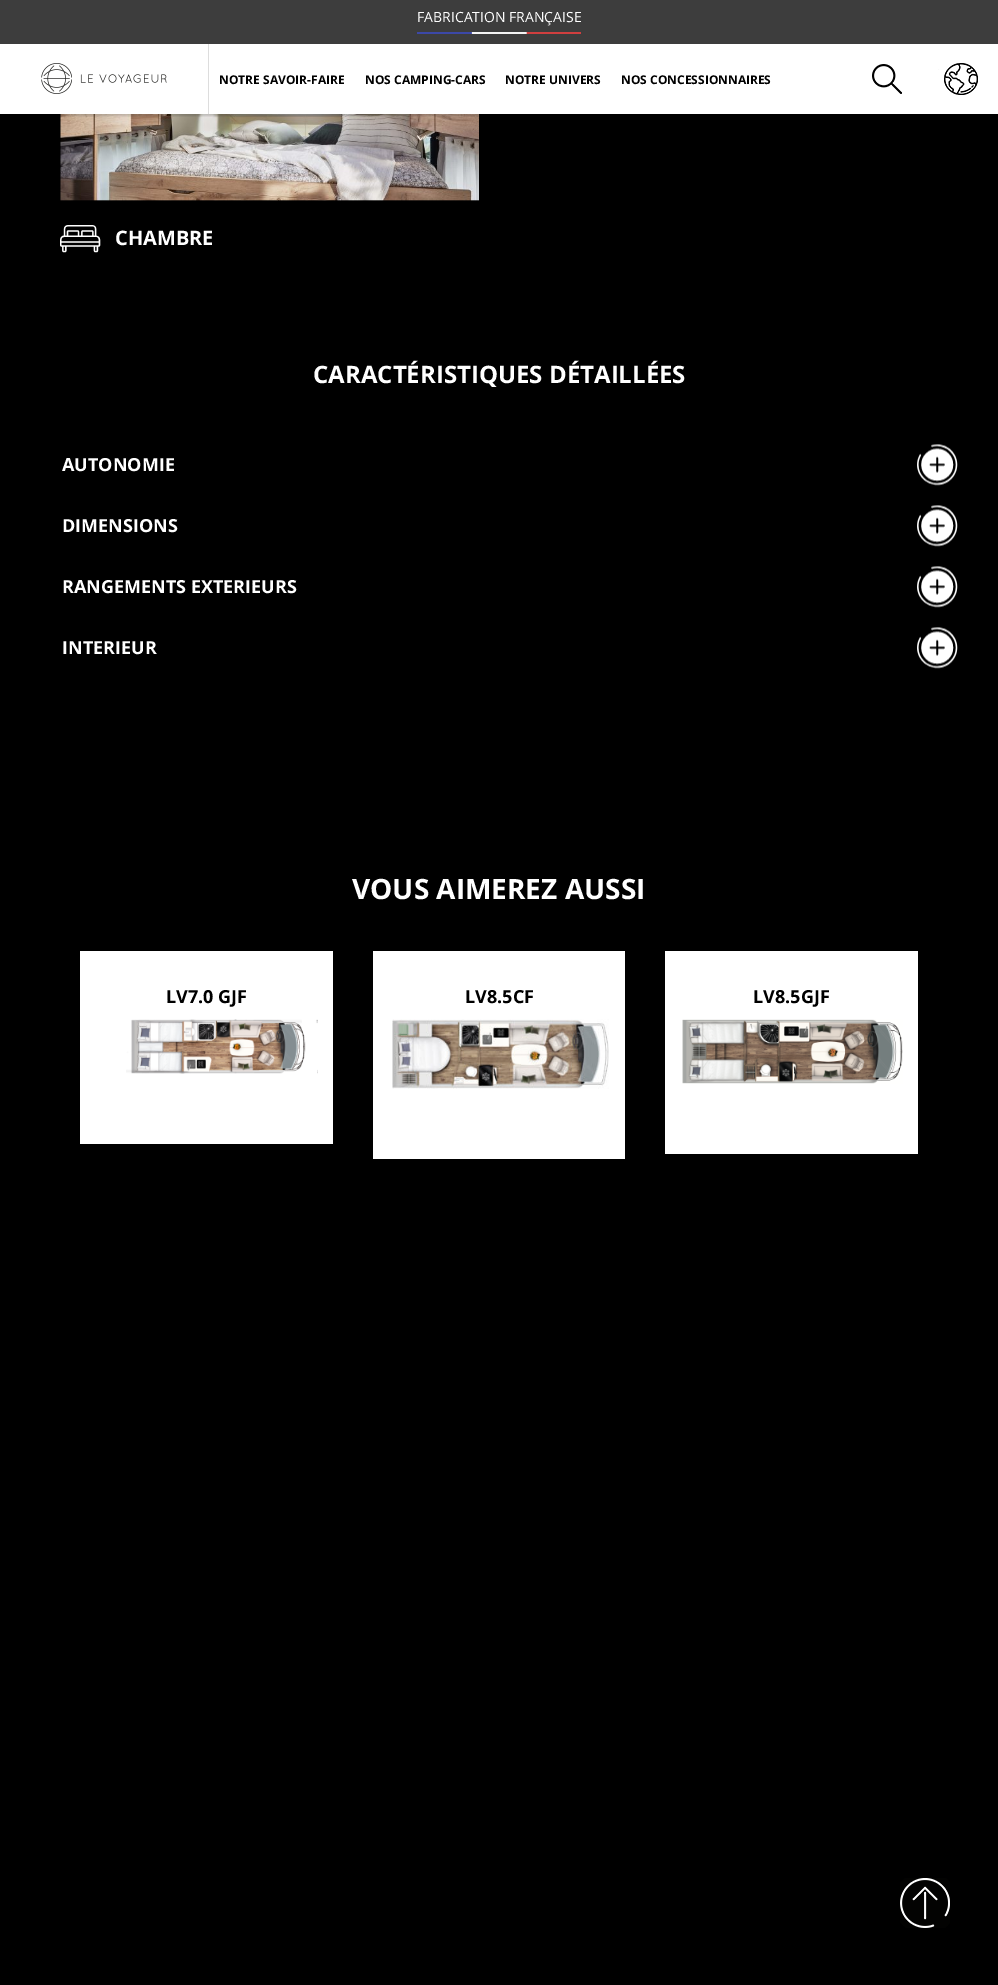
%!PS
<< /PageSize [998 1985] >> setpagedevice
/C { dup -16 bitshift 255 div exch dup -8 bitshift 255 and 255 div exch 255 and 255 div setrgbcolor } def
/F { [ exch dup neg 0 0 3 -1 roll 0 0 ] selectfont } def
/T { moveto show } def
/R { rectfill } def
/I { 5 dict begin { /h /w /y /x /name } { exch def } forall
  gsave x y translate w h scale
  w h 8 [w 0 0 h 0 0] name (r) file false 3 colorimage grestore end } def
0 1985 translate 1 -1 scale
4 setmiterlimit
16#000000 C
0 0 998 1985 R
16#FFFFFF C
0 44 998 70 R
16#3D3D3D C
0 0 998 44 R
/OpenSans-Regular 14 F
16#FFFFFF C
(FABRICATION FRANÇAISE) 417 22 T
(1.rgb) 417 32 164 2 I
(2.rgb) 41 63 126 31 I
16#DDDDDD C
208 44 1 70 R
/OpenSans-Bold 12 F
16#000000 C
(NOTRE SAVOIR-FAIRE) 219 84 T
(NOS CAMPING-CARS) 365 84 T
(NOTRE UNIVERS) 505 84 T
(NOS CONCESSIONNAIRES) 621 84 T
(3.rgb) 872 64 30 30 I
(4.rgb) 938 63 40 32 I
(6.rgb) 60 114 419 87 I
(5.rgb) 60 114 419 3 I
(7.rgb) 60 225 41 28 I
/OpenSans-Bold 20 F
16#FFFFFF C
(CHAMBRE) 115 245 T
/OpenSans-Bold 24 F
(CARACTÉRISTIQUES DÉTAILLÉES) 313 383 T
/OpenSans-Bold 18 F
(AUTONOMIE) 62 471 T
(8.rgb) 917 444 41 42 I
(DIMENSIONS) 62 532 T
(8.rgb) 917 505 41 42 I
(RANGEMENTS EXTERIEURS) 62 593 T
(8.rgb) 917 566 41 42 I
(INTERIEUR) 62 654 T
(8.rgb) 917 627 41 42 I
/OpenSans-Bold 28 F
(VOUS AIMEREZ AUSSI) 352 899 T
80 951 253 193 R
/OpenSans-Bold 18 F
16#000000 C
(LV7.0 GJF) 166 1003 T
(9.rgb) 126 1019 192 55 I
16#FFFFFF C
373 951 252 208 R
16#000000 C
(LV8.5CF) 465 1003 T
(10.rgb) 392 1019 217 70 I
16#FFFFFF C
665 951 253 203 R
16#000000 C
(LV8.5GJF) 753 1003 T
(11.rgb) 682 1019 221 65 I
(12.rgb) 900 1878 50 50 I
showpage
